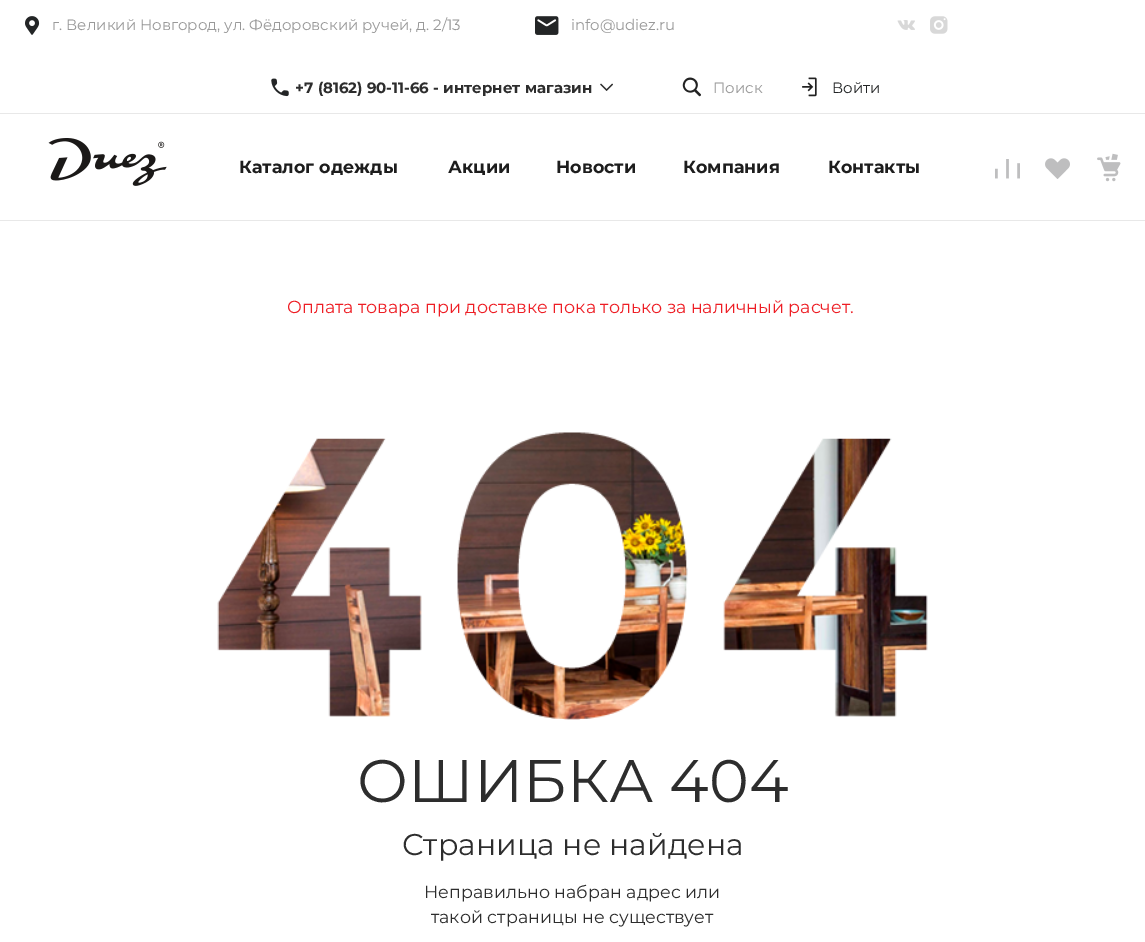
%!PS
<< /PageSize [1145 942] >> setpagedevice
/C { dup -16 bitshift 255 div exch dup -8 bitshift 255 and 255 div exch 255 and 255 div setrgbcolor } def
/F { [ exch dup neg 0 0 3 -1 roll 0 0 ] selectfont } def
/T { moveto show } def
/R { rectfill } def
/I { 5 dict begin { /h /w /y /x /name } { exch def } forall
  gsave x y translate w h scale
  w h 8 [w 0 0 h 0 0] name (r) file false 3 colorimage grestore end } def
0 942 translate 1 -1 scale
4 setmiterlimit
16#FFFFFF C
0 0 1145 942 R
16#E8E8E8 C
0 113 1145 1 R
(1.rgb) 25 16 15 19 I
/Montserrat-Regular 15 F
16#999999 C
(г. Великий Новгород, ул. Фёдоровский ручей, д. 2/13) 52 30 T
(2.rgb) 535 16 24 19 I
(info@udiez.ru) 571 30 T
(3.rgb) 897 20 18 10 I
(4.rgb) 930 16 18 18 I
(5.rgb) 271 78 18 19 I
/Montserrat-Bold 15 F
16#2D2D2D C
(+7 \(8162\) 90-11-66 - интернет магазин) 295 93 T
(6.rgb) 600 83 13 8 I
(7.rgb) 682 77 19 20 I
/Montserrat-Regular 15 F
16#999999 C
(Поиск) 713 93 T
(8.rgb) 802 77 15 20 I
16#232526 C
(Войти) 832 93 T
16#E8E8E8 C
0 220 1145 1 R
(9.rgb) 48 138 119 48 I
/Montserrat-Bold 17.5 F
16#1D1D1D C
(Каталог одежды) 239 173 T
(Акции) 448 173 T
(Новости) 556 173 T
(Компания) 683 173 T
(Контакты) 828 173 T
(10.rgb) 995 159 25 20 I
(11.rgb) 1045 158 25 21 I
(12.rgb) 1097 153 24 29 I
/Montserrat-Regular 17.5 F
16#EE1D24 C
(Оплата товара при доставке пока только за наличный расчет.) 287 313 T
(13.rgb) 217 432 711 288 I
/Montserrat-Regular 60 F
16#2D2D2D C
(ОШИБКА 404) 357 802 T
/Montserrat-Regular 30 F
(Страница не найдена) 402 855 T
/Montserrat-Regular 17.5 F
(Неправильно набран адрес или) 424 898 T
(такой страницы не существует) 431 923 T
showpage
